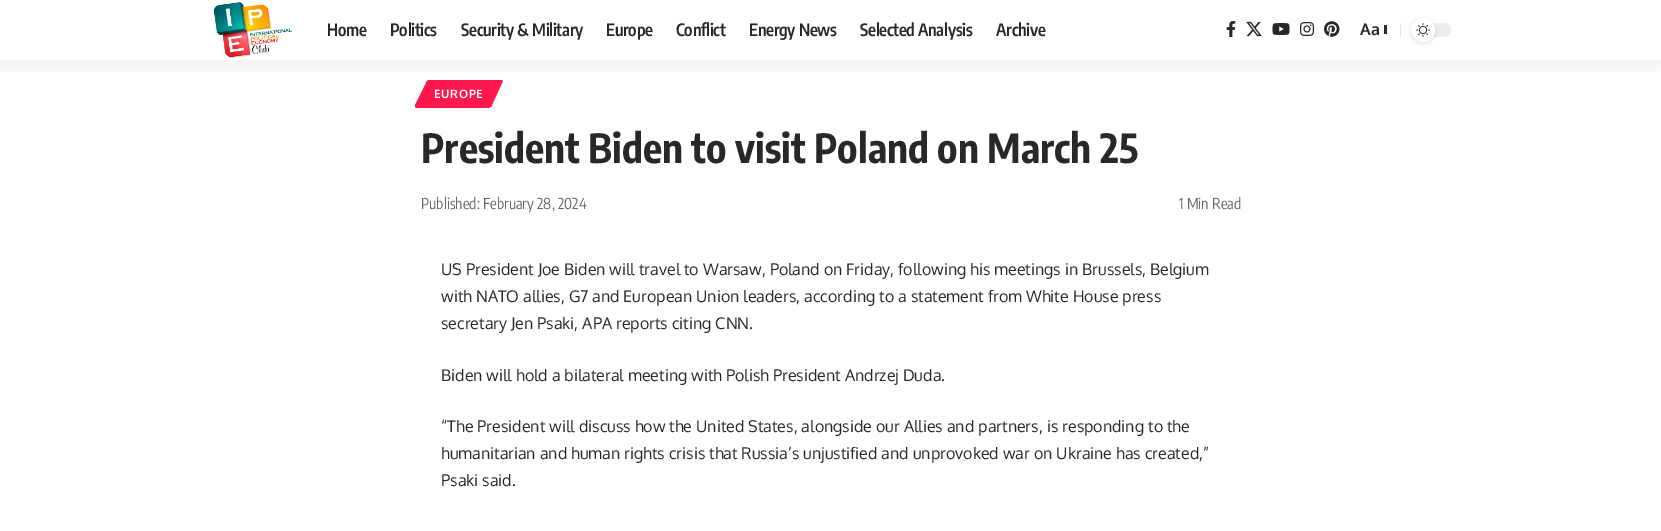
%!PS
<< /PageSize [1661 531] /PageUsesTransparency true >> setpagedevice
/m/moveto load def
/l/rlineto load def
/c/rcurveto load def
/z/closepath load def
/f/fill load def
/q/gsave load def
/Q_/grestore load def
/C { dup -16 bitshift 255 div exch dup -8 bitshift 255 and 255 div exch 255 and 255 div setrgbcolor } def
/F { [ exch dup neg 0 0 3 -1 roll 0 0 ] selectfont } def
/T { moveto show } def
/R { rectfill } def
/A { dup .setfillconstantalpha .setstrokeconstantalpha } def
/O { newpath 0 360 arc closepath } def
/Q { 5 dict begin { /r /h /w /y /x } { exch def } forall
  x r add y moveto x w add y 2 copy h add r arct x w add y h add x 1 index r arct
  x y h add x y r arct x y 2 copy exch w add exch r arct closepath end } def
/S { 12 dict begin { /a /b /q /h /w /y /x } { exch def } forall gsave /was 0 def
  9 -2 -9 { dup b mul 4 div /e exch def 1 sub .425 mul 2.718 exch exp 1 add a .99 .min exch div /now exch def
    1 1 now sub 1 was sub div sub A /was now def
    w h .min e 2 mul add 0 gt { x e sub y e sub w e 2 mul add h e 2 mul add
      q e add b .6 mul add w h .min 2 div e add .min 0 .max Q fill } if } for grestore end } def
/I { 5 dict begin { /h /w /y /x /name } { exch def } forall
  gsave x y translate w h scale
  w h 8 [w 0 0 h 0 0] name (r) file false 3 colorimage grestore end } def
0 .pushpdf14devicefilter
0 531 translate 1 -1 scale
4 setmiterlimit
16#FFFFFF C
0 0 1661 531 R
16#FF184E C
430 80 m 71 0 l 2 0 2 1 1 3 c -10 22 l 0 1 -2 3 -4 3 c -71 0 l -2 0 -2 -2 -2 -3 c 11 -22 l 0 -2 2 -3 4 -3 c z f
q
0 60 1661 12 rectclip
16#000000 C
0 4 1661 60 0 15 .07 S
Q_
(1.rgb) 213 2 80 56 I
/EncodeSansCondensed-SemiBold 17 F
16#282828 C
327 36 m -.3 0 (Home) ashow
390 36 m -.3 0 (Politics) ashow
461 36 m -.3 0 (Security & Military) ashow
606 36 m -.3 0 (Europe) ashow
676 36 m -.3 0 (Conflict) ashow
749 36 m -.3 0 (Energy News) ashow
860 36 m -.3 0 (Selected Analysis) ashow
996 36 m -.3 0 (Archive) ashow
(2.rgb) 1226 21 10 16 I
(3.rgb) 1246 21 16 16 I
(4.rgb) 1272 23 18 12 I
(5.rgb) 1300 22 14 14 I
(6.rgb) 1324 21 16 16 I
/Oxygen-Bold 16 F
(Aa) 1360 35 T
1384 25 3 9 R
16#E4E4E4 C
1400 23 1 14 R
16#EDEDED C
1411 23 40 14 7 Q f
16#000000 C
1411 19 24 24 12 2 .12 S
16#FFFFFF C
1423 30 12 O f
(7.rgb) 1416 23 14 14 I
/Oxygen-Bold 11.5 F
434 98 m .75 0 (EUROPE) ashow
/EncodeSansCondensed-Bold 40 F
16#282828 C
(President Biden to visit Poland on March 25) 421 163 T
/EncodeSansCondensed-Regular 15 F
16#666666 C
(Published: February 28, 2024) 421 209 T
(1 Min Read) 1179 209 T
/Oxygen-Regular 16 F
16#282828 C
(US President Joe Biden will travel to Warsaw, Poland on Friday, following his meetings in Brussels, Belgium) 441 275 T
(with NATO allies, G7 and European Union leaders, according to a statement from White House press) 441 302 T
(secretary Jen Psaki, APA reports citing CNN.) 441 329 T
(Biden will hold a bilateral meeting with Polish President Andrzej Duda.) 441 381 T
(“The President will discuss how the United States, alongside our Allies and partners, is responding to the) 441 432 T
(humanitarian and human rights crisis that Russia’s unjustified and unprovoked war on Ukraine has created,”) 441 459 T
(Psaki said.) 441 486 T
.poppdf14devicefilter showpage
